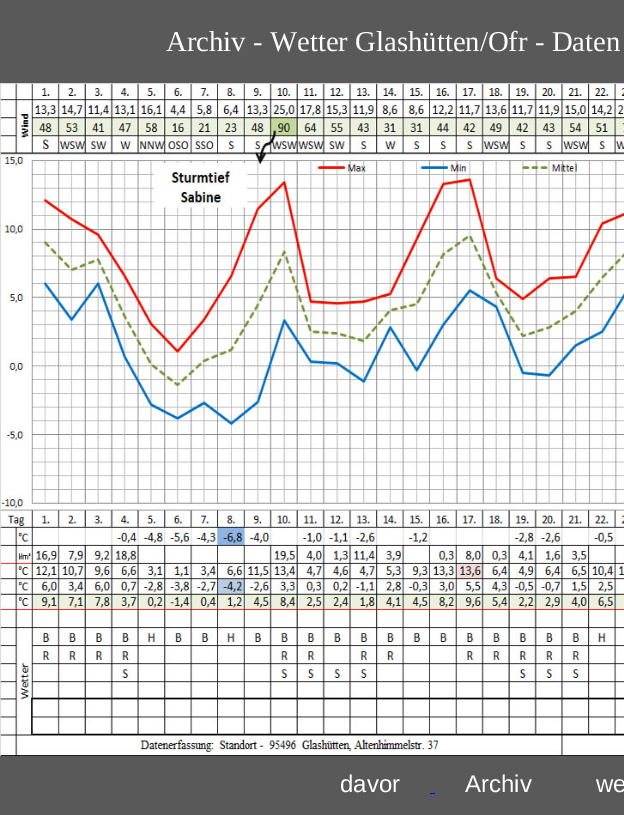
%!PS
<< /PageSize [624 815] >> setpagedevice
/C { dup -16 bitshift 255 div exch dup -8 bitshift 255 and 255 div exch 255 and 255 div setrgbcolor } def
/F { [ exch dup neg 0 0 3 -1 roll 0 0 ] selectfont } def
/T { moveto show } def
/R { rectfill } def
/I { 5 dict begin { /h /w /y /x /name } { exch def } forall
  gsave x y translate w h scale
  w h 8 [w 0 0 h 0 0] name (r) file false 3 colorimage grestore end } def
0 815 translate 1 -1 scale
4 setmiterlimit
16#595959 C
0 0 624 815 R
/LiberationSerif-Regular 28.75 F
16#FFFFFF C
(Archiv - Wetter Glashütten/Ofr - Daten) 166 51 T
(1.rgb) 0 83 624 673 I
/LiberationSans-Regular 24 F
(davor) 340 792 T
(Archiv) 465 792 T
(we) 596 792 T
16#0000EE C
430 793 5 1 R
showpage
